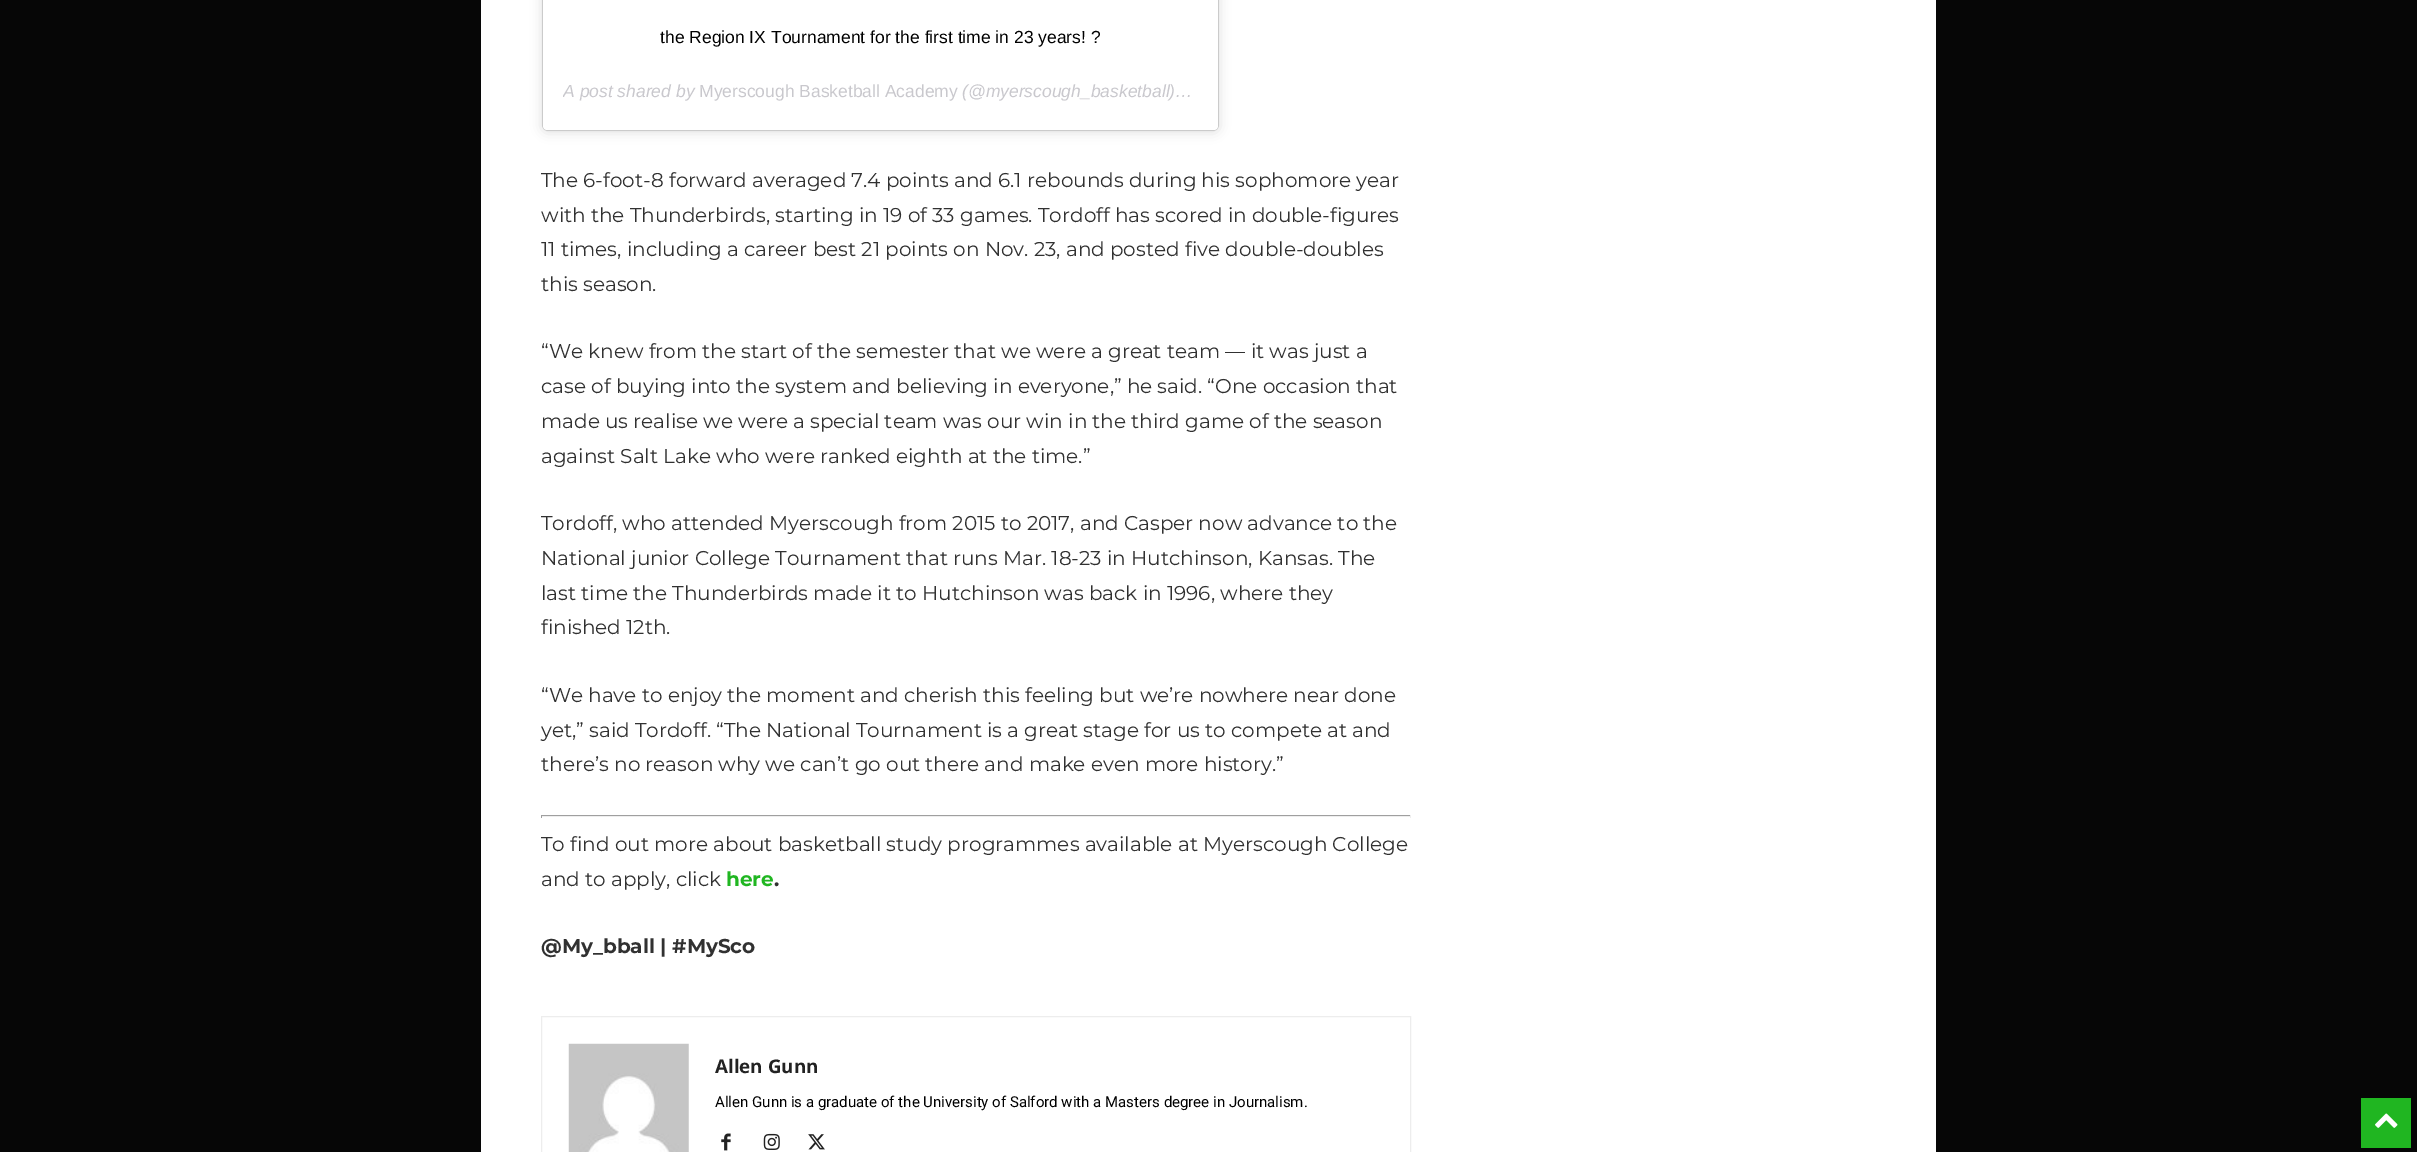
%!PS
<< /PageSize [2417 1152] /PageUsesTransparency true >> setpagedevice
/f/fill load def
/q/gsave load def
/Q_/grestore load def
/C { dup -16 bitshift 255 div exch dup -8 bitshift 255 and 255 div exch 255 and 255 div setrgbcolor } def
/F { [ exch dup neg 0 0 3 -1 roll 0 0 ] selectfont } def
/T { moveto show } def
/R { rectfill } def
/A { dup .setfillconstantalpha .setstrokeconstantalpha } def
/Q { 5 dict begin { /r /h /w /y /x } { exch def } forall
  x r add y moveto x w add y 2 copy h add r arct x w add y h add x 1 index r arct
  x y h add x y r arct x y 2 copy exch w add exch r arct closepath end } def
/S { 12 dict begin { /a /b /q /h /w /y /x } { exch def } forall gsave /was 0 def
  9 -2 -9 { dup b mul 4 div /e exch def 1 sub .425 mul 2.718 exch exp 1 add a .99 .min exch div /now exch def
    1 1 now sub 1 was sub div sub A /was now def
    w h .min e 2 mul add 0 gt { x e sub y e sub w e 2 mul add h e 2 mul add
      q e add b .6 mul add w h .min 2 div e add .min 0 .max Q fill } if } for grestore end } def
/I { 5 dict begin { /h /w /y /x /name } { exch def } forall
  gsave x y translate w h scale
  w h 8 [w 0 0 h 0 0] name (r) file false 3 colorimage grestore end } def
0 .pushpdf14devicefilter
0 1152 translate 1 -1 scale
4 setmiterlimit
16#060606 C
0 0 2417 1152 R
16#FFFFFF C
481 0 1455 1152 R
16#000000 C
543 -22 675 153 4 6 .15 S
543 -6 675 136 4 .5 .5 S
16#FFFFFF C
543 -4 675 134 4 Q f
/LiberationSans-Regular 17.5 F
16#000000 C
(the Region IX Tournament for the first time in 23 years! ?) 660 43 T
q
563 70 635 40 rectclip
/LiberationSans-Italic 17.5 F
16#C9C8CD C
(A post shared by) 563 97 T
Q_
16#C9C8CD C
(Myerscough Basketball Academy) 699 97 T
/LiberationSans-Italic 17.5 F
(\(@myerscough_basketball\)…) 962 97 T
/Montserrat-Regular 20 F
16#313131 C
(The 6-foot-8 forward averaged 7.4 points and 6.1 rebounds during his sophomore year) 541 187 T
(with the Thunderbirds, starting in 19 of 33 games. Tordoff has scored in double-figures) 541 222 T
(11 times, including a career best 21 points on Nov. 23, and posted five double-doubles) 541 256 T
(this season.) 541 291 T
(“We knew from the start of the semester that we were a great team — it was just a) 541 358 T
(case of buying into the system and believing in everyone,” he said. “One occasion that) 541 393 T
(made us realise we were a special team was our win in the third game of the season) 541 428 T
(against Salt Lake who were ranked eighth at the time.”) 541 463 T
(Tordoff, who attended Myerscough from 2015 to 2017, and Casper now advance to the) 541 530 T
(National junior College Tournament that runs Mar. 18-23 in Hutchinson, Kansas. The) 541 565 T
(last time the Thunderbirds made it to Hutchinson was back in 1996, where they) 541 600 T
(finished 12th.) 541 634 T
(“We have to enjoy the moment and cherish this feeling but we’re nowhere near done) 541 702 T
(yet,” said Tordoff. “The National Tournament is a great stage for us to compete at and) 541 737 T
(there’s no reason why we can’t go out there and make even more history.”) 541 771 T
16#9F9F9F C
541 815 870 1 R
16#EEEEEE C
1410 815 1 3 R
541 816 870 1 R
16#9F9F9F C
541 815 1 3 R
16#313131 C
(To find out more about basketball study programmes available at Myerscough College) 541 851 T
(and to apply, click) 541 886 T
/Montserrat-Bold 20 F
16#20B621 C
(here) 726 886 T
16#313131 C
(.) 774 886 T
(@My_bball | #MySco) 541 953 T
16#EDEDED C
541.5 1016.5 869 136 rectstroke
(1.rgb) 568 1043 121 109 I
/OpenSans-Bold 18.75 F
16#222222 C
(Allen Gunn) 715 1073 T
/Roboto-Regular 15 F
16#000000 C
(Allen Gunn is a graduate of the University of Salford with a Masters degree in Journalism.) 715 1107 T
(2.rgb) 721 1133 10 18 I
(3.rgb) 763 1133 17 17 I
(4.rgb) 808 1134 17 16 I
16#20B621 C
2361 1098 50 50 R
(5.rgb) 2375 1113 23 15 I
.poppdf14devicefilter showpage
